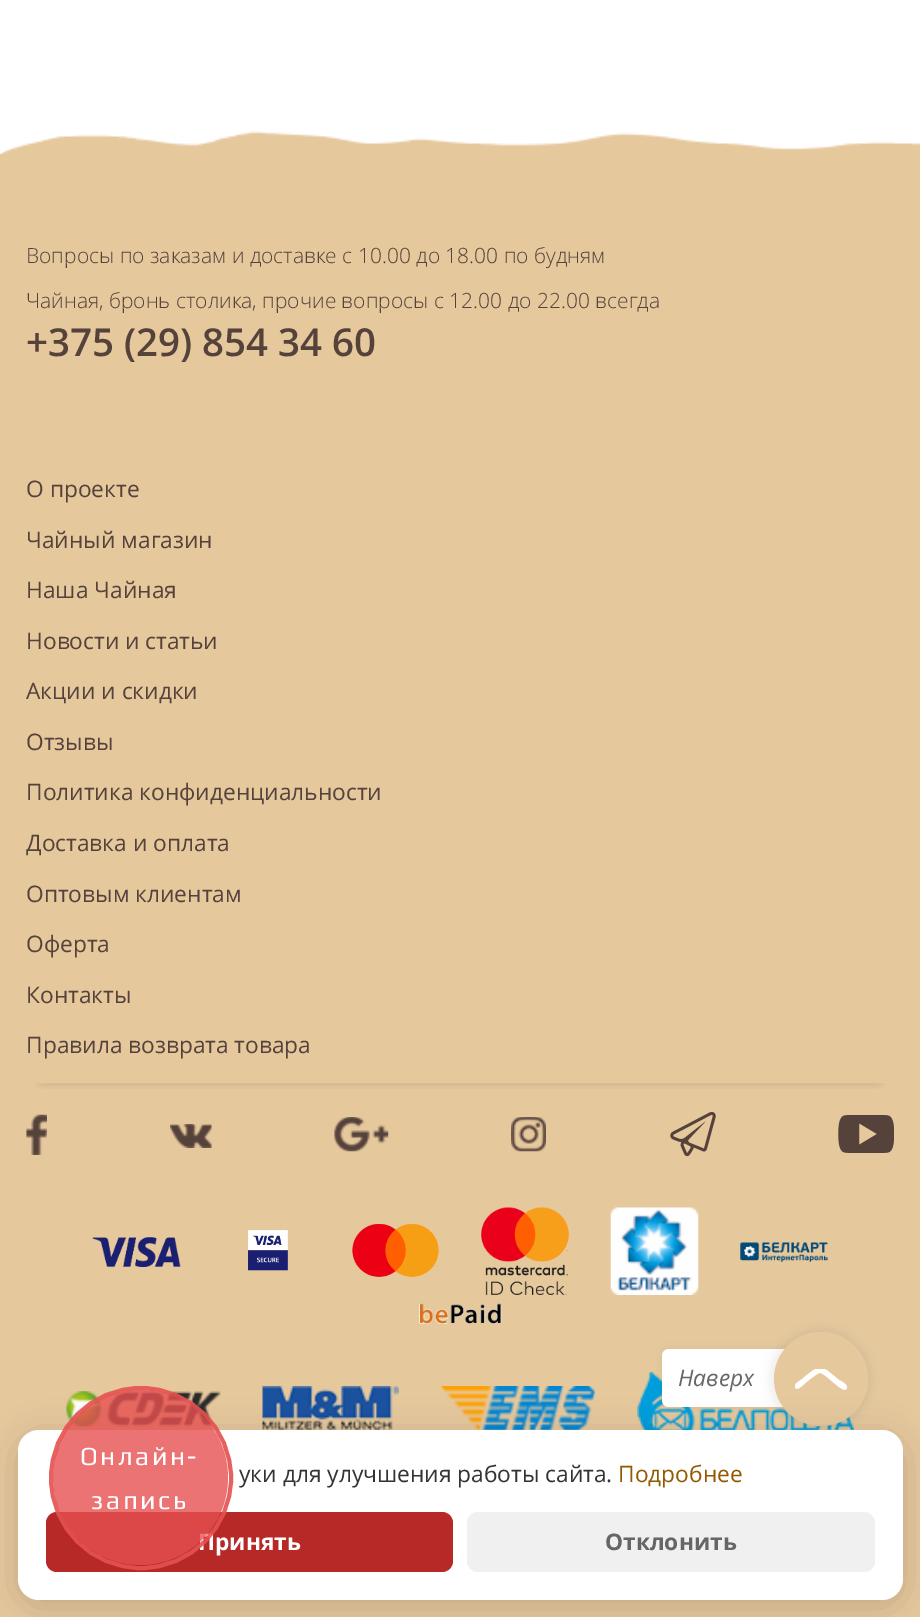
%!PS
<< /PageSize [920 1617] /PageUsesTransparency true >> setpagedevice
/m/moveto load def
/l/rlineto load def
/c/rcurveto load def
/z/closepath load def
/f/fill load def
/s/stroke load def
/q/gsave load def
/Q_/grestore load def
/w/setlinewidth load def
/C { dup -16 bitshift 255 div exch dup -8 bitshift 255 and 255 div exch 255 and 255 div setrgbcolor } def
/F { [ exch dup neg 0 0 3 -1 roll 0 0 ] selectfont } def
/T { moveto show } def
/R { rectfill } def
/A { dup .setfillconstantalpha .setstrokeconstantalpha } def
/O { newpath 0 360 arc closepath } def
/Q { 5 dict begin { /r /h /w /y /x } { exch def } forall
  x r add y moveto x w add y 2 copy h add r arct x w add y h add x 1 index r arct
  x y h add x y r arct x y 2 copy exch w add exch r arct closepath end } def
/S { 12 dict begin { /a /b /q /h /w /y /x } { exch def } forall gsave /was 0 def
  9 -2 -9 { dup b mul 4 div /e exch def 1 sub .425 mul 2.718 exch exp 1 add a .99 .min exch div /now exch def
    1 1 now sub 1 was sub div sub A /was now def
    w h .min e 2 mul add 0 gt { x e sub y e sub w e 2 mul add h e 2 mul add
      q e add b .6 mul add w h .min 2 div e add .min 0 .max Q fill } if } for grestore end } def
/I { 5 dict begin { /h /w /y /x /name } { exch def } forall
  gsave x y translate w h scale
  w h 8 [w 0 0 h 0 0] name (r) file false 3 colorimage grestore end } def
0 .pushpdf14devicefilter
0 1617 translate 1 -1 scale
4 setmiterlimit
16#FFFFFF C
0 0 920 1617 R
16#E6C89D C
0 154 920 1463 R
(1.rgb) 0 131 920 23 I
/OpenSans-Light 21 F
16#55423B C
(Вопросы по заказам и доставке с 10.00 до 18.00 по будням) 26 263 T
(Чайная, бронь столика, прочие вопросы с 12.00 до 22.00 всегда) 26 308 T
/OpenSans-SemiBold 38.5 F
(+375 \(29\) 854 34 60) 26 356 T
/OpenSans-Regular 22.75 F
(О проекте) 26 497 T
(Чайный магазин) 26 548 T
(Наша Чайная) 26 598 T
(Новости и статьи) 26 649 T
(Акции и скидки) 26 699 T
(Отзывы) 26 750 T
(Политика конфиденциальности) 26 800 T
(Доставка и оплата) 26 851 T
(Оптовым клиентам) 26 902 T
(Оферта) 26 952 T
(Контакты) 26 1003 T
(Правила возврата товара) 26 1053 T
(2.rgb) 35 1083 851 6 I
(3.rgb) 26 1114 21 41 I
(4.rgb) 170 1124 42 24 I
(5.rgb) 334 1117 55 35 I
(6.rgb) 511 1117 35 35 I
(7.rgb) 670 1111 46 46 I
(8.rgb) 838 1115 56 38 I
(9.rgb) 92 1237 89 30 I
(10.rgb) 248 1230 40 41 I
(11.rgb) 352 1223 87 54 I
(12.rgb) 481 1207 88 88 I
(13.rgb) 610 1207 89 88 I
(14.rgb) 740 1242 88 20 I
(15.rgb) 419 1303 83 21 I
(16.rgb) 66 1391 155 36 I
(17.rgb) 262 1386 137 44 I
(18.rgb) 441 1386 154 44 I
(19.rgb) 637 1372 217 58 I
16#4F4F4F C
662 1349 171 58 7 4.5 .1 S
16#FFFFFF C
669 1349 m 164 0 l 0 58 l -164 0 l -4 0 -7 -3 -7 -7 c 0 -44 l 0 -4 3 -7 7 -7 c z f
/OpenSans-Italic 22.75 F
16#666666 C
(Наверх) 678 1386 T
16#4F4F4F C
770 1328 102 102 51 4.5 .1 S
16#E6C89D C
821 1379 47 O f
q
795 1369 52 21 rectclip
16#FFFFFF C
795 1386 m 0 -3 5 -5 7 -7 c 20 -16 17 -15 37 1 c 2 1 8 4 8 7 c -1 11 -21 -14 -27 -14 c -3 0 -15 10 -18 13 c -2 1 -4 4 -7 2 c z f
Q_
16#000000 C
18 1437 885 170 21 17.5 .15 S
16#FFFFFF C
18 1430 885 170 21 Q f
16#B62927 C
46 1512 407 60 11 Q f
/OpenSans-Bold 22.75 F
16#FFFFFF C
(Принять) 198 1550 T
0.8 A
16#E65050 C
140.5 1477.5 87.5 O f
0.9 A
4 w
141 1478 90 O s
/Play-Regular 26.25 F
1 A
16#FFFFFF C
80 1465 m 2.5 0 (Онлайн-) ashow
91 1509 m 2.5 0 (запись) ashow
/OpenSans-Regular 22.75 F
16#333333 C
(уки для улучшения работы сайта.) 239 1482 T
16#925900 C
(Подробнее) 618 1482 T
16#F0F0F0 C
467 1512 408 60 11 Q f
/OpenSans-Bold 22.75 F
16#666666 C
(Отклонить) 605 1550 T
.poppdf14devicefilter showpage
